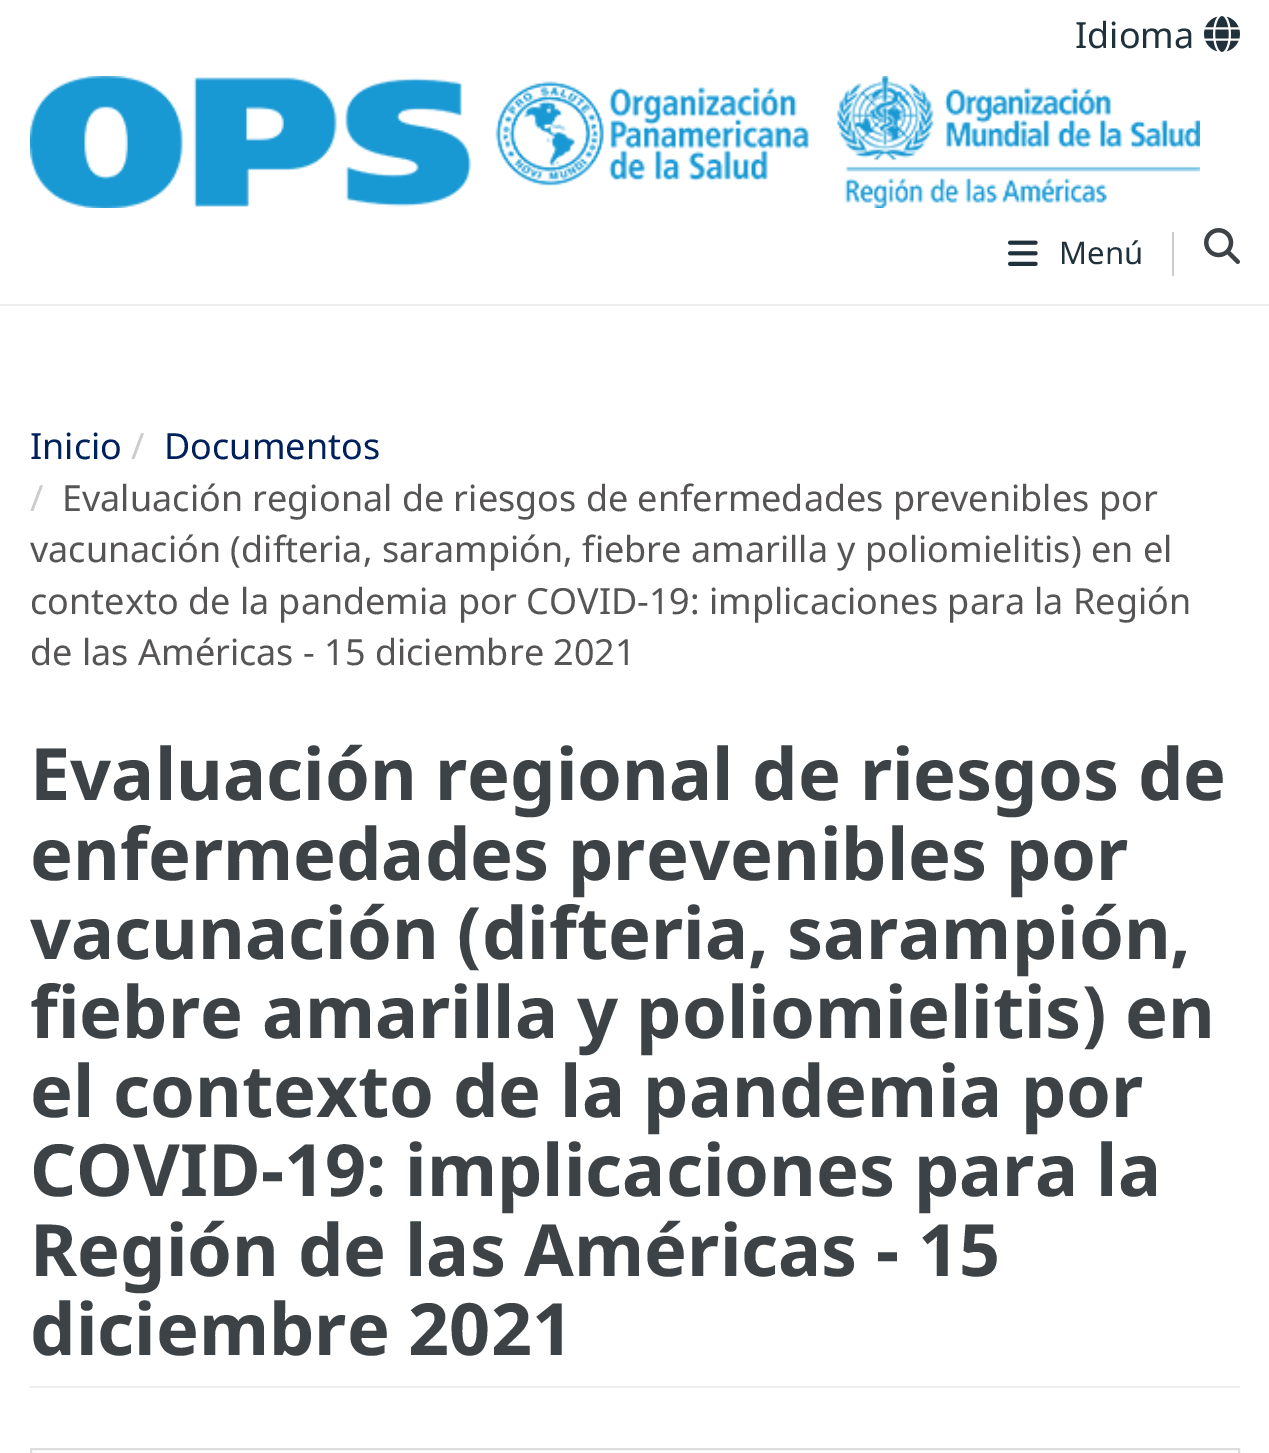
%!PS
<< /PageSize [1269 1453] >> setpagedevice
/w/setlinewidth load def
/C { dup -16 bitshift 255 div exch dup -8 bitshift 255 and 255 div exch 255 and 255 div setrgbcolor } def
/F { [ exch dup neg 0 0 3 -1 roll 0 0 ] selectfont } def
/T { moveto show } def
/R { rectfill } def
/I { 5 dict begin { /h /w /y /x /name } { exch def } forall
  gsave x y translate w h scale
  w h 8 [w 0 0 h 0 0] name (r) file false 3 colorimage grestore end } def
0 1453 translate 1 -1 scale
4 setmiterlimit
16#FFFFFF C
0 0 1269 1453 R
16#EEEEEE C
0 304 1269 2 R
/NotoSans-Regular 36 F
16#20313B C
(Idioma) 1075 48 T
(1.rgb) 1204 16 36 36 I
(2.rgb) 30 76 1170 132 I
16#CCCCCC C
1172 232 2 44 R
(3.rgb) 1008 240 30 26 I
/NotoSans-Regular 31 F
16#20313B C
(Menú) 1059 264 T
(4.rgb) 1204 228 36 36 I
/NotoSans-Regular 36 F
16#00205C C
(Inicio) 30 459 T
16#CCCCCC C
(/) 131 459 T
16#00205C C
(Documentos) 164 459 T
16#CCCCCC C
(/) 30 511 T
16#565454 C
(Evaluación regional de riesgos de enfermedades prevenibles por) 62 511 T
(vacunación \(difteria, sarampión, fiebre amarilla y poliomielitis\) en el) 30 562 T
(contexto de la pandemia por COVID-19: implicaciones para la Región) 30 614 T
(de las Américas - 15 diciembre 2021) 30 665 T
16#EEEEEE C
30 1386 1210 2 R
/NotoSans-Bold 72 F
16#3C4245 C
(Evaluación regional de riesgos de) 30 800 T
(enfermedades prevenibles por) 30 880 T
(vacunación \(difteria, sarampión,) 30 959 T
(fiebre amarilla y poliomielitis\) en) 30 1038 T
(el contexto de la pandemia por) 30 1117 T
(COVID-19: implicaciones para la) 30 1196 T
(Región de las Américas - 15) 30 1276 T
(diciembre 2021) 30 1355 T
16#DDDDDD C
2 w
31 1449 1208 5 rectstroke
showpage
